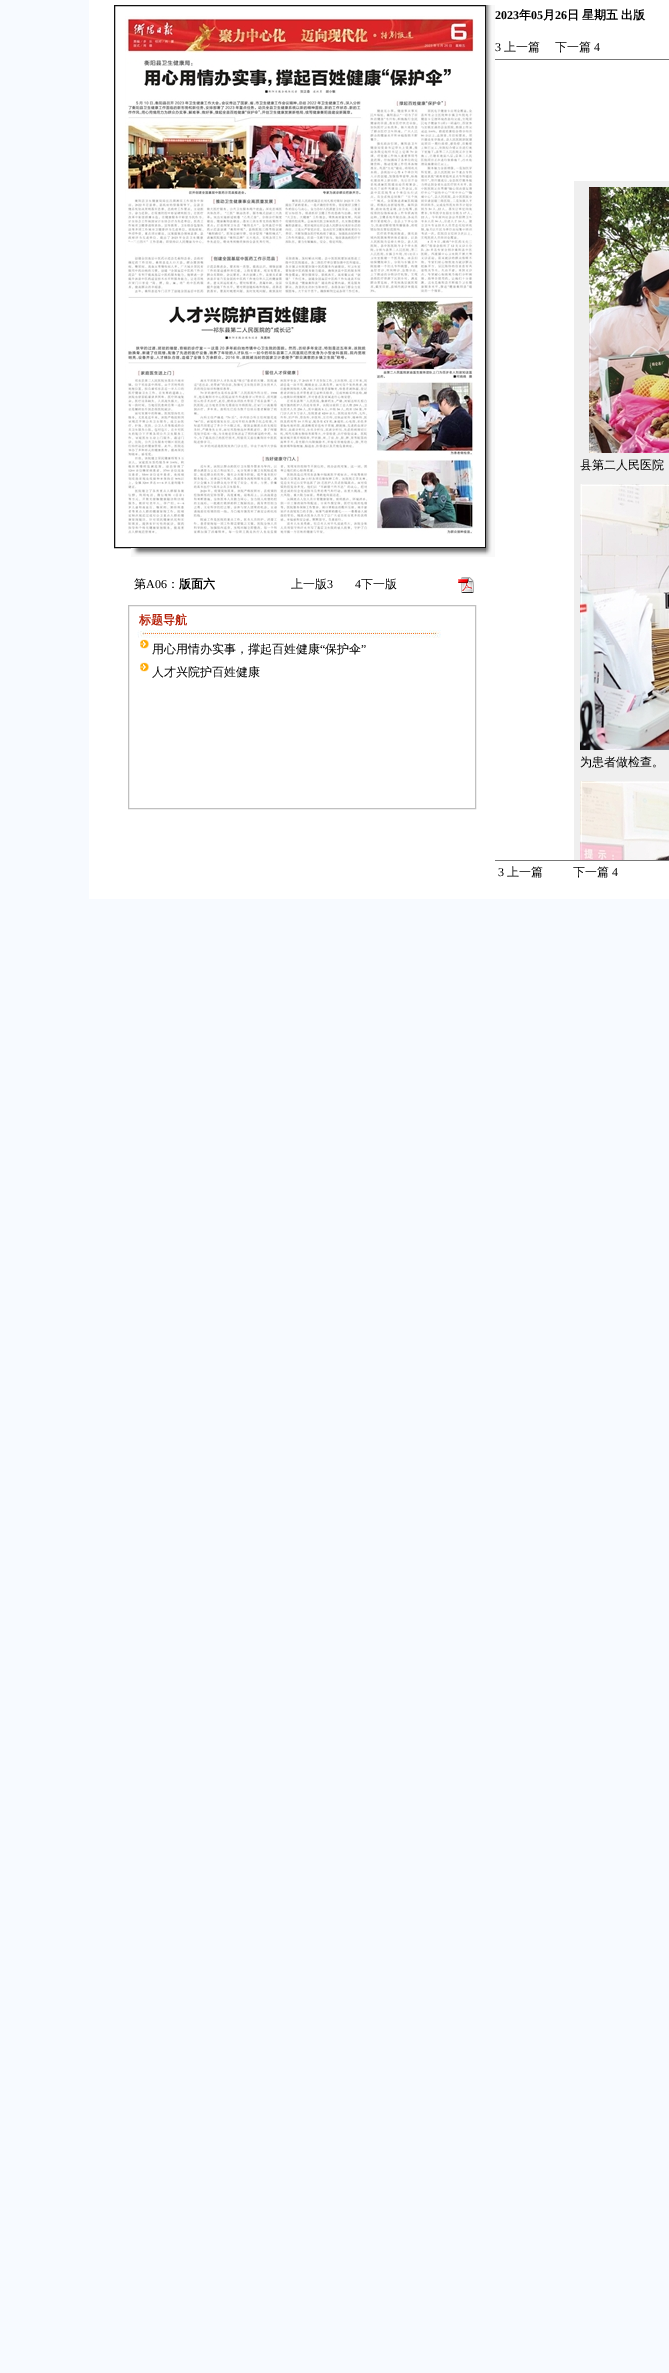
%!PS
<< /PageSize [669 2373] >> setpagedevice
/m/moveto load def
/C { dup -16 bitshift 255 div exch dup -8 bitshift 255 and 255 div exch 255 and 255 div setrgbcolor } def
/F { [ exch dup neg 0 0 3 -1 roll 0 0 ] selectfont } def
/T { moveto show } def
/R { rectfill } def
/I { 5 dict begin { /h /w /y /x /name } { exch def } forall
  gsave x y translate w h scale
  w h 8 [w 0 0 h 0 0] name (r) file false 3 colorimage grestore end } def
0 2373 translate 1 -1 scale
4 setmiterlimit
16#F7FAFF C
0 0 669 2373 R
16#FFFFFF C
89 0 580 899 R
16#111111 C
114.5 5.5 371 542 rectstroke
(1.rgb) 125 16 349 518 I
(2.rgb) 486 5 9 543 I
(3.rgb) 131 548 355 9 I
(4.rgb) 486 548 9 9 I
/WenQuanYiZenHei-Medium 12 F
16#000000 C
(第) 134 588 T
/LiberationSerif-Regular 12 F
(A06) 146 588 T
/WenQuanYiZenHei-Medium 12 F
(：) 167 588 T
/WenQuanYiZenHei-Bold 12 F
(版面六) 179 588 T
/WenQuanYiZenHei-Medium 12 F
(上一版) 291 588 T
/LiberationSerif-Regular 12 F
(3) 327 588 T
(4) 355 588 T
/WenQuanYiZenHei-Medium 12 F
(下一版) 361 588 T
(5.rgb) 458 577 16 16 I
16#C0C0C0 C
128.5 605.5 347 203 rectstroke
/WenQuanYiZenHei-Bold 12 F
16#B52008 C
(标题导航) 139 624 T
(6.rgb) 137 630 304 8 I
(7.rgb) 140 639 9 10 I
/WenQuanYiZenHei-Medium 12 F
16#000000 C
(用心用情办实事，撑起百姓健康) 152 653 T
/LiberationSerif-Regular 12 F
(“) 320 653 T
/WenQuanYiZenHei-Medium 12 F
(保护伞) 325 653 T
/LiberationSerif-Regular 12 F
(”) 361 653 T
(7.rgb) 140 662 9 10 I
/WenQuanYiZenHei-Medium 12 F
(人才兴院护百姓健康) 152 676 T
/LiberationSerif-Bold 12 F
(2023) 495 19 T
/WenQuanYiZenHei-Bold 12 F
(年) 519 19 T
/LiberationSerif-Bold 12 F
(05) 531 19 T
/WenQuanYiZenHei-Bold 12 F
(月) 543 19 T
/LiberationSerif-Bold 12 F
(26) 555 19 T
/WenQuanYiZenHei-Bold 12 F
(日) 567 19 T
582 19 m -1 0 32 (星期五 出版) widthshow
16#787878 C
495 59 174 1 R
/LiberationSerif-Regular 12 F
16#000000 C
(3) 495 51 T
/WenQuanYiZenHei-Medium 12 F
(上一篇) 504 51 T
(下一篇) 555 51 T
/LiberationSerif-Regular 12 F
(4) 594 51 T
16#EFEFEF C
574 181 95 679 R
(8.rgb) 589 187 80 266 I
/WenQuanYiZenHei-Medium 12 F
16#000000 C
(县第二人民医院) 580 469 T
(9.rgb) 580 484 89 266 I
(为患者做检查。) 580 766 T
(10.rgb) 580 781 89 79 I
16#787878 C
495 860 174 1 R
/LiberationSerif-Regular 12 F
16#000000 C
(3) 498 876 T
/WenQuanYiZenHei-Medium 12 F
(上一篇) 507 876 T
(下一篇) 573 876 T
/LiberationSerif-Regular 12 F
(4) 612 876 T
showpage
